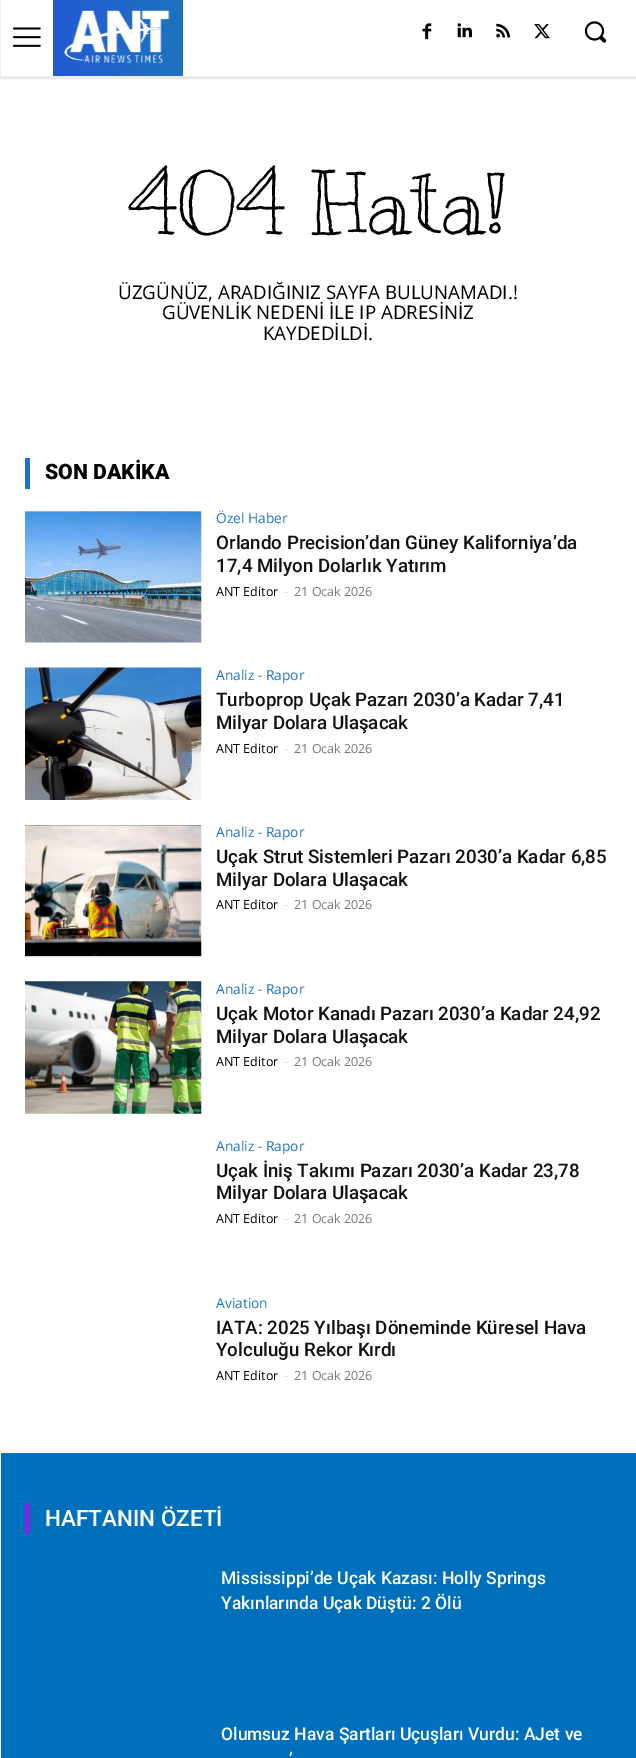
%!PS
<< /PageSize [636 1758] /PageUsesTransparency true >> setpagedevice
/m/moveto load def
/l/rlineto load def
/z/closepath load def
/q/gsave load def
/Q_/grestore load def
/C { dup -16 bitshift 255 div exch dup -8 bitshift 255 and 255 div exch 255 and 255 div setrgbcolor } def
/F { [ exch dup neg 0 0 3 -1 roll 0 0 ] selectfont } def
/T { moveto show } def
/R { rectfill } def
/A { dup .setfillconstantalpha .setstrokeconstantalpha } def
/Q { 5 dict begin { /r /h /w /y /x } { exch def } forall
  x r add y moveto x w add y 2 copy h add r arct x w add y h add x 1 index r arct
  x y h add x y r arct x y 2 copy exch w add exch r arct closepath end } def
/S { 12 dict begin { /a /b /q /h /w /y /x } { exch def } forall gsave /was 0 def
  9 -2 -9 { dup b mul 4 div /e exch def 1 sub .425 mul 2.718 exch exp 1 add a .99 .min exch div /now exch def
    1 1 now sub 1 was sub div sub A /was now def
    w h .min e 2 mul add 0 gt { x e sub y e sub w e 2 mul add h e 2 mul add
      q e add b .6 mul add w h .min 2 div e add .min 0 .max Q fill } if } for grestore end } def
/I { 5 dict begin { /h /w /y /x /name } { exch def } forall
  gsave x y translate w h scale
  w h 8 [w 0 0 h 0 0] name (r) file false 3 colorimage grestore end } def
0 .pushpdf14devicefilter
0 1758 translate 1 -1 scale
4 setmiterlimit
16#FFFFFF C
0 0 636 1758 R
(1.rgb) 12 27 29 20 I
q 53 0 m 130 0 l 0 76 l -130 0 l z clip newpath
<< /ShadingType 2 /ColorSpace /DeviceRGB /Coords [183 38 53 38] /Extend [true true] /Function << /FunctionType 2 /Domain [0 1] /C0 [.118 .451 .745] /C1 [.129 .353 .827] /N 1 >> >> shfill Q_
(2.rgb) 64 10 106 53 I
(3.rgb) 422 23 10 17 I
(4.rgb) 457 23 15 15 I
(5.rgb) 496 23 14 15 I
(6.rgb) 534 24 16 15 I
(7.rgb) 584 21 23 22 I
q
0 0 m 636 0 l 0 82 l -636 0 l z 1 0 m 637 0 l 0 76 l -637 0 l z eoclip newpath
16#000000 C
0 0 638 79 0 .5 .08 S
Q_
/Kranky-Regular 87.5 F
16#000000 C
(404 Hata!) 129 233 T
/OpenSans-Regular 18.75 F
(ÜZGÜNÜZ, ARADIĞINIZ SAYFA BULUNAMADI.!) 118 299 T
(GÜVENLİK NEDENİ İLE IP ADRESİNİZ) 162 319 T
(KAYDEDİLDİ.) 263 340 T
16#1E73BE C
25 458 5 31 R
/Roboto-Black 21.25 F
16#000000 C
(SON DAKİKA) 45 479 T
(8.rgb) 25 511 177 132 I
/OpenSans-Regular 13.75 F
16#1E73BE C
(Özel Haber) 216 523 T
/Roboto-Medium 18.75 F
16#111111 C
(Orlando Precision’dan Güney Kaliforniya’da) 216 549 T
(17,4 Milyon Dolarlık Yatırım) 216 572 T
/OpenSans-Regular 12.5 F
16#000000 C
(ANT Editor) 216 596 T
16#CCCCCC C
(-) 284 596 T
16#767676 C
(21 Ocak 2026) 294 596 T
(9.rgb) 25 667 177 133 I
/OpenSans-Regular 13.75 F
16#1E73BE C
(Analiz - Rapor) 216 680 T
/Roboto-Medium 18.75 F
16#111111 C
(Turboprop Uçak Pazarı 2030’a Kadar 7,41) 216 706 T
(Milyar Dolara Ulaşacak) 216 729 T
/OpenSans-Regular 12.5 F
16#000000 C
(ANT Editor) 216 753 T
16#CCCCCC C
(-) 284 753 T
16#767676 C
(21 Ocak 2026) 294 753 T
(10.rgb) 25 825 177 132 I
/OpenSans-Regular 13.75 F
16#1E73BE C
(Analiz - Rapor) 216 837 T
/Roboto-Medium 18.75 F
16#111111 C
(Uçak Strut Sistemleri Pazarı 2030’a Kadar 6,85) 216 863 T
(Milyar Dolara Ulaşacak) 216 886 T
/OpenSans-Regular 12.5 F
16#000000 C
(ANT Editor) 216 909 T
16#CCCCCC C
(-) 284 909 T
16#767676 C
(21 Ocak 2026) 294 909 T
(11.rgb) 25 981 177 133 I
/OpenSans-Regular 13.75 F
16#1E73BE C
(Analiz - Rapor) 216 994 T
/Roboto-Medium 18.75 F
16#111111 C
(Uçak Motor Kanadı Pazarı 2030’a Kadar 24,92) 216 1020 T
(Milyar Dolara Ulaşacak) 216 1043 T
/OpenSans-Regular 12.5 F
16#000000 C
(ANT Editor) 216 1066 T
16#CCCCCC C
(-) 284 1066 T
16#767676 C
(21 Ocak 2026) 294 1066 T
/OpenSans-Regular 13.75 F
16#1E73BE C
(Analiz - Rapor) 216 1151 T
/Roboto-Medium 18.75 F
16#111111 C
(Uçak İniş Takımı Pazarı 2030’a Kadar 23,78) 216 1177 T
(Milyar Dolara Ulaşacak) 216 1199 T
/OpenSans-Regular 12.5 F
16#000000 C
(ANT Editor) 216 1223 T
16#CCCCCC C
(-) 284 1223 T
16#767676 C
(21 Ocak 2026) 294 1223 T
/OpenSans-Regular 13.75 F
16#1E73BE C
(Aviation) 216 1308 T
/Roboto-Medium 18.75 F
16#111111 C
(IATA: 2025 Yılbaşı Döneminde Küresel Hava) 216 1334 T
(Yolculuğu Rekor Kırdı) 216 1356 T
/OpenSans-Regular 12.5 F
16#000000 C
(ANT Editor) 216 1380 T
16#CCCCCC C
(-) 284 1380 T
16#767676 C
(21 Ocak 2026) 294 1380 T
16#006FBC C
1 1453 635 305 R
16#8224E3 C
25 1503 5 31 R
/Roboto-Medium 22.5 F
16#FFFFFF C
(HAFTANIN ÖZETİ) 45 1526 T
/Roboto-Medium 17.5 F
(Mississippi’de Uçak Kazası: Holly Springs) 221 1584 T
(Yakınlarında Uçak Düştü: 2 Ölü) 221 1609 T
(Olumsuz Hava Şartları Uçuşları Vurdu: AJet ve) 221 1740 T
(’) 289 1765 T
.poppdf14devicefilter showpage
